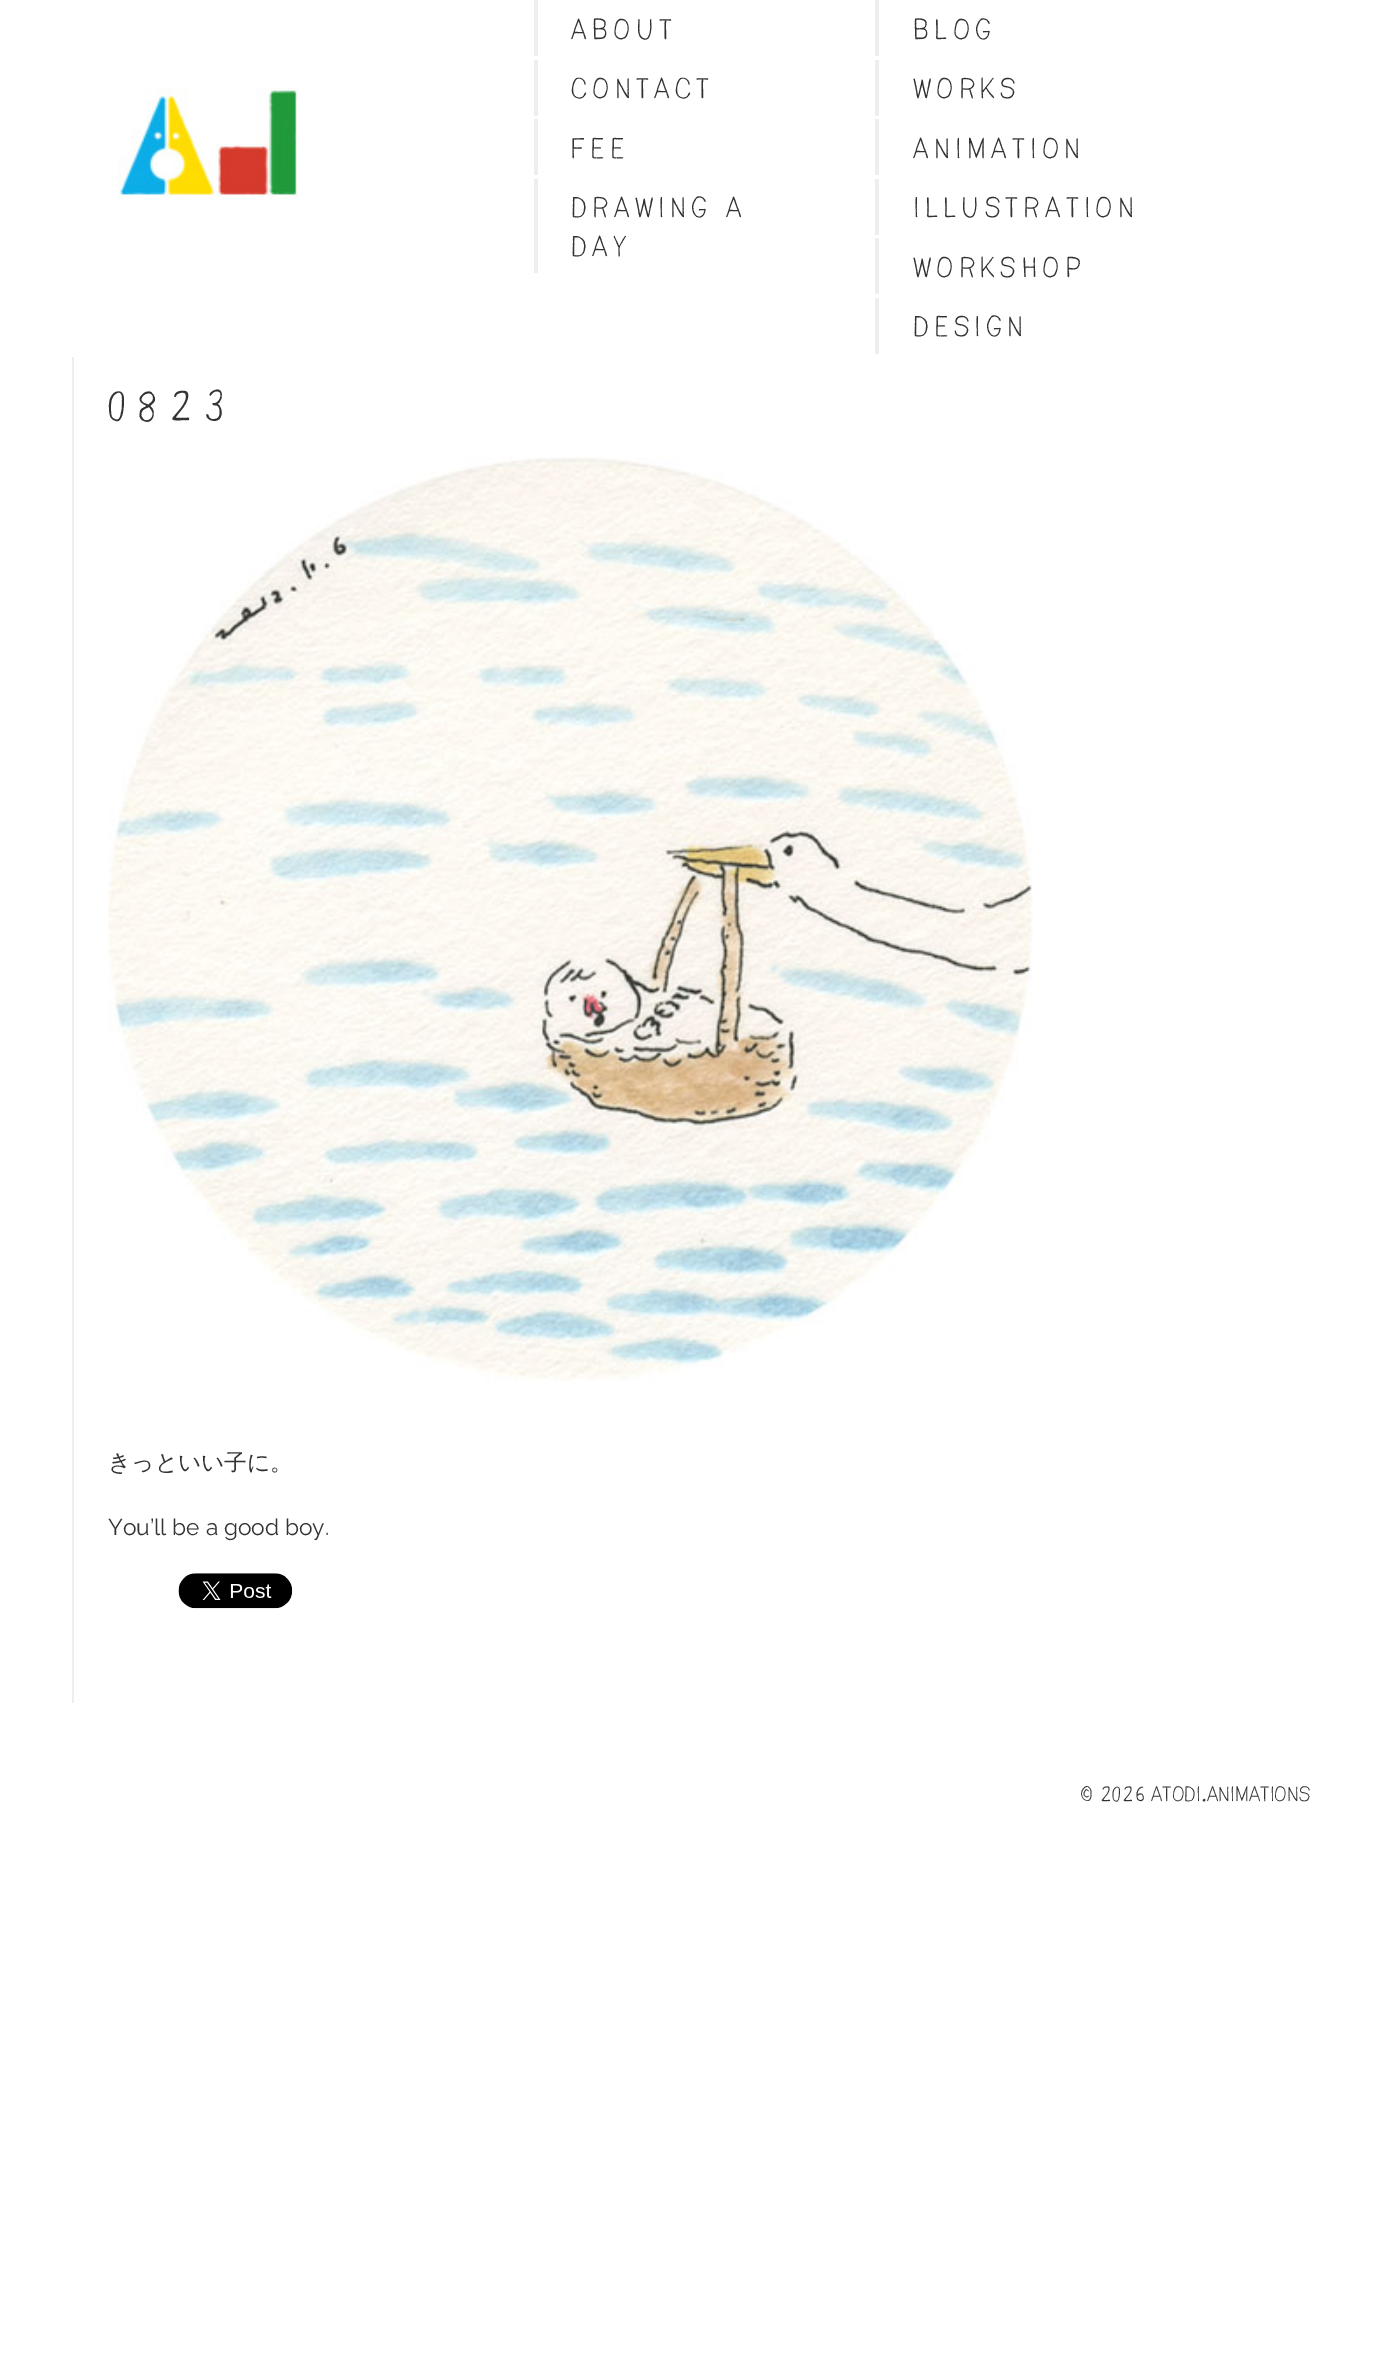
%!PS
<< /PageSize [1380 2372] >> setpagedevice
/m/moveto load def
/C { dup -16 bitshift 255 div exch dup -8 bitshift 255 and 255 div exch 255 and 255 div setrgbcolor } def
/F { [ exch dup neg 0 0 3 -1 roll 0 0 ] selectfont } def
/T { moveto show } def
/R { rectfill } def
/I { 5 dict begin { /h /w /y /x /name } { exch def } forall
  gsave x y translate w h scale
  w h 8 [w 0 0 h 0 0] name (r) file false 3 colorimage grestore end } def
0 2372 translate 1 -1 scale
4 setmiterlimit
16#FFFFFF C
0 0 1380 2372 R
(1.rgb) 117 88 182 112 I
16#EEEEEE C
534 0 4 56 R
/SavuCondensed-Regular 26.25 F
16#333333 C
571 39 m 5.25 0 (ABOUT) ashow
16#EEEEEE C
534 60 4 56 R
16#333333 C
571 98 m 5.25 0 (CONTACT) ashow
16#EEEEEE C
534 119 4 56 R
16#333333 C
571 158 m 5.25 0 (FEE) ashow
16#EEEEEE C
534 179 4 94 R
16#333333 C
571 217 m 5.25 0 (DRAWING A) ashow
571 256 m 5.25 0 (DAY) ashow
16#EEEEEE C
875 0 4 56 R
16#333333 C
913 39 m 5.25 0 (BLOG) ashow
16#EEEEEE C
875 60 4 56 R
16#333333 C
913 98 m 5.25 0 (WORKS) ashow
16#EEEEEE C
875 119 4 56 R
16#333333 C
913 158 m 5.25 0 (ANIMATION) ashow
16#EEEEEE C
875 179 4 56 R
16#333333 C
913 217 m 5.25 0 (ILLUSTRATION) ashow
16#EEEEEE C
875 238 4 56 R
16#333333 C
913 277 m 5.25 0 (WORKSHOP) ashow
16#EEEEEE C
875 298 4 56 R
16#333333 C
913 336 m 5.25 0 (DESIGN) ashow
16#EEEEEE C
72 357 2 1346 R
/SavuCondensed-Regular 38.5 F
16#333333 C
108 420 m 9 0 (0823) ashow
(2.rgb) 108 457 925 924 I
/WenQuanYiZenHei-Medium 22.75 F
(きっといい子に。) 108 1470 T
/Raleway-Regular 22.75 F
(You’ll be a good boy.) 108 1535 T
(3.rgb) 178 1573 115 36 I
/SavuCondensed-Regular 19.25 F
(© 2026 atodi.animations) 1080 1801 T
showpage
